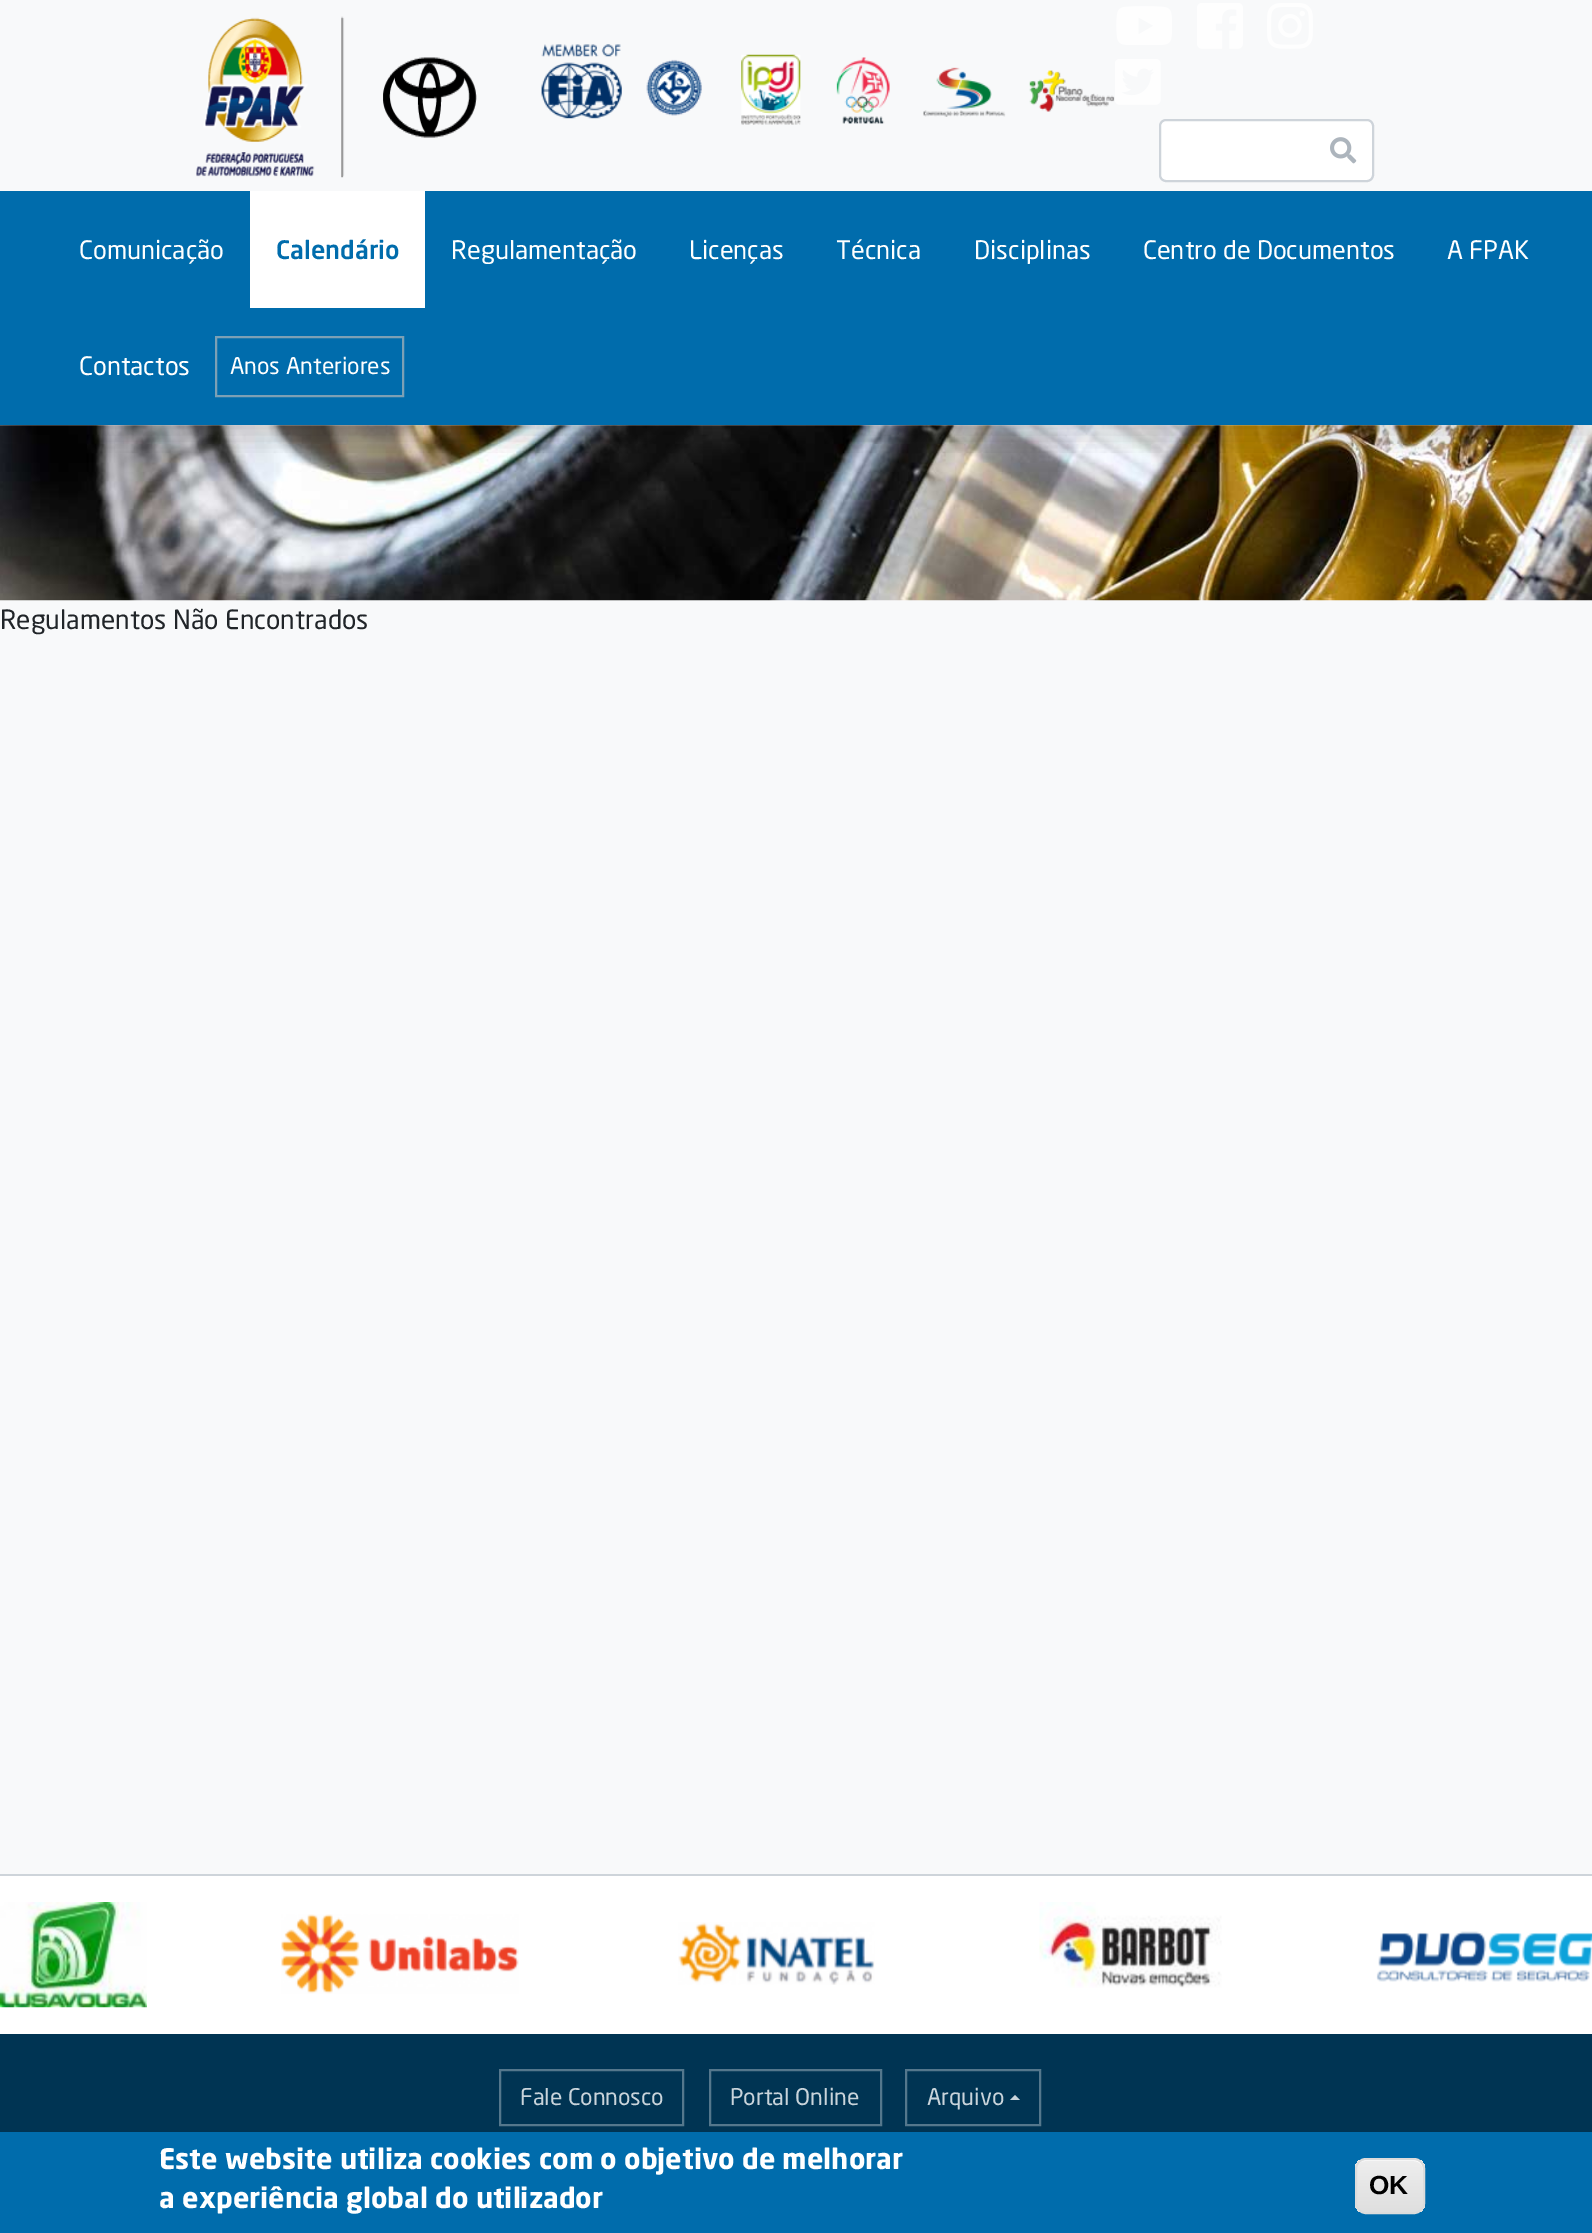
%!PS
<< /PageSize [1592 2233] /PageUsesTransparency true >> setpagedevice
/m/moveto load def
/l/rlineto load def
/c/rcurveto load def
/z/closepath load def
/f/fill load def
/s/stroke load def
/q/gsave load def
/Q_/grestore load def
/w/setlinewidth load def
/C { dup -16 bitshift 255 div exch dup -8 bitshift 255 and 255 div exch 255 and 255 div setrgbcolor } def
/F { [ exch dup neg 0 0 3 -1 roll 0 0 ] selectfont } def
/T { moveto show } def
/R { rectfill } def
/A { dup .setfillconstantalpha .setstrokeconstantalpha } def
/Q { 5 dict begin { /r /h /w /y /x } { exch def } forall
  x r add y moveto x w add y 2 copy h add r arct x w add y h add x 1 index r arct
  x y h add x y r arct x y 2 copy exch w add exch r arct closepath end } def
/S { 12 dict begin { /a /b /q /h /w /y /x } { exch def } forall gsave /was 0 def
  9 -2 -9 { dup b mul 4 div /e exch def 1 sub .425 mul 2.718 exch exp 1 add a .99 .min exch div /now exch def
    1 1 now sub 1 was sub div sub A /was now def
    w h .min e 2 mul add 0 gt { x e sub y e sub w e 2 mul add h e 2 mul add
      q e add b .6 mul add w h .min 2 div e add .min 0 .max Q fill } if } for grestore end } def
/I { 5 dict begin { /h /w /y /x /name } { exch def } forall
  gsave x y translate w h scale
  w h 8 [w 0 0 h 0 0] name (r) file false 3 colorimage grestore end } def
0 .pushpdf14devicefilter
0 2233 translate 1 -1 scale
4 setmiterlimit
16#F8F9FA C
0 0 1592 2233 R
(8.rgb) 0 425 1592 176 I
q
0 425 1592 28 rectclip
16#000000 C
0 14 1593 425 0 13 .15 S
Q_
(1.rgb) 196 16 281 162 I
(2.rgb) 541 44 574 81 I
(3.rgb) 1116 6 56 39 I
(4.rgb) 1197 3 46 46 I
(5.rgb) 1267 3 46 46 I
(6.rgb) 1115 59 46 46 I
16#FFFFFF C
1160 120 213 61 6 Q q f Q_
16#CED4DA C
2 w
s
(7.rgb) 1330 137 27 27 I
16#006CAC C
0 191 1592 234 R
/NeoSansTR-Regular 25.25 F
16#FFFFFF C
(Comunicação) 79 259 T
250 191 175 117 R
/NeoSansTR-Medium 25.25 F
16#006CAC C
(Calendário) 276 259 T
/NeoSansTR-Regular 25.25 F
16#FFFFFF C
(Regulamentação) 451 259 T
(Licenças) 689 259 T
(Técnica) 836 259 T
(Disciplinas) 974 259 T
(Centro de Documentos) 1143 259 T
(A FPAK) 1447 259 T
(Contactos) 79 375 T
16#7CA0B5 C
216 337 187 59 rectstroke
/NeoSansTR-Regular 22.75 F
16#FFFFFF C
(Anos Anteriores) 230 374 T
/NeoSansTR-Regular 26.25 F
16#212529 C
(Regulamentos Não Encontrados) 0 629 T
16#FFFFFF C
0 1876 1592 158 R
16#CED4DA C
0 1874 1592 2 R
(9.rgb) 0 1902 147 106 I
(10.rgb) 281 1914 238 80 I
(11.rgb) 678 1922 197 63 I
(12.rgb) 1039 1902 183 86 I
(13.rgb) 1376 1931 216 51 I
16#003453 C
0 2034 1592 98 R
16#54778C C
500 2070 183 55 rectstroke
/NeoSansTR-Regular 22.75 F
16#C9D4DB C
(Fale Connosco) 520 2105 T
16#54778C C
710 2070 171 55 rectstroke
16#C9D4DB C
(Portal Online) 730 2105 T
16#54778C C
906 2070 134 55 rectstroke
16#C9D4DB C
(Arquivo) 927 2105 T
1020 2100 m -10 0 l 5 -5 l z f
16#006CAC C
0 2132 1592 101 R
/NeoSansTR-Bold 28 F
16#FFFFFF C
(Este website utiliza cookies com o objetivo de melhorar) 159 2169 T
(a experiência global do utilizador) 159 2208 T
q
1355 2158 70 56 11 Q clip newpath
q 1355 2160 m 70 0 l 0 52 l -70 0 l z clip newpath
<< /ShadingType 2 /ColorSpace /DeviceRGB /Coords [1390 2160 1390 2212] /Extend [true true] /Function << /FunctionType 3 /Domain [0 1] /Functions [<< /FunctionType 2 /Domain [0 1] /C0 [.929 .929 .929] /C1 [.929 .929 .929] /N 1 >> << /FunctionType 2 /Domain [0 1] /C0 [.929 .929 .929] /C1 [.875 .875 .875] /N 1 >>] /Bounds [.05] /Encode [0 1 0 1] >> >> shfill Q_
Q_
1365 2161 m 49 0 l 5 0 9 4 9 9 c 0 -11 -9 -10 -17 -10 c -33 0 l -8 0 -17 -1 -17 10 c 0 -5 4 -9 9 -9 c z f
16#DCDCDC C
1356 2159 68 54 10 Q s
/LiberationSans-Bold 26.25 F
16#000000 C
(OK) 1369 2194 T
.poppdf14devicefilter showpage
